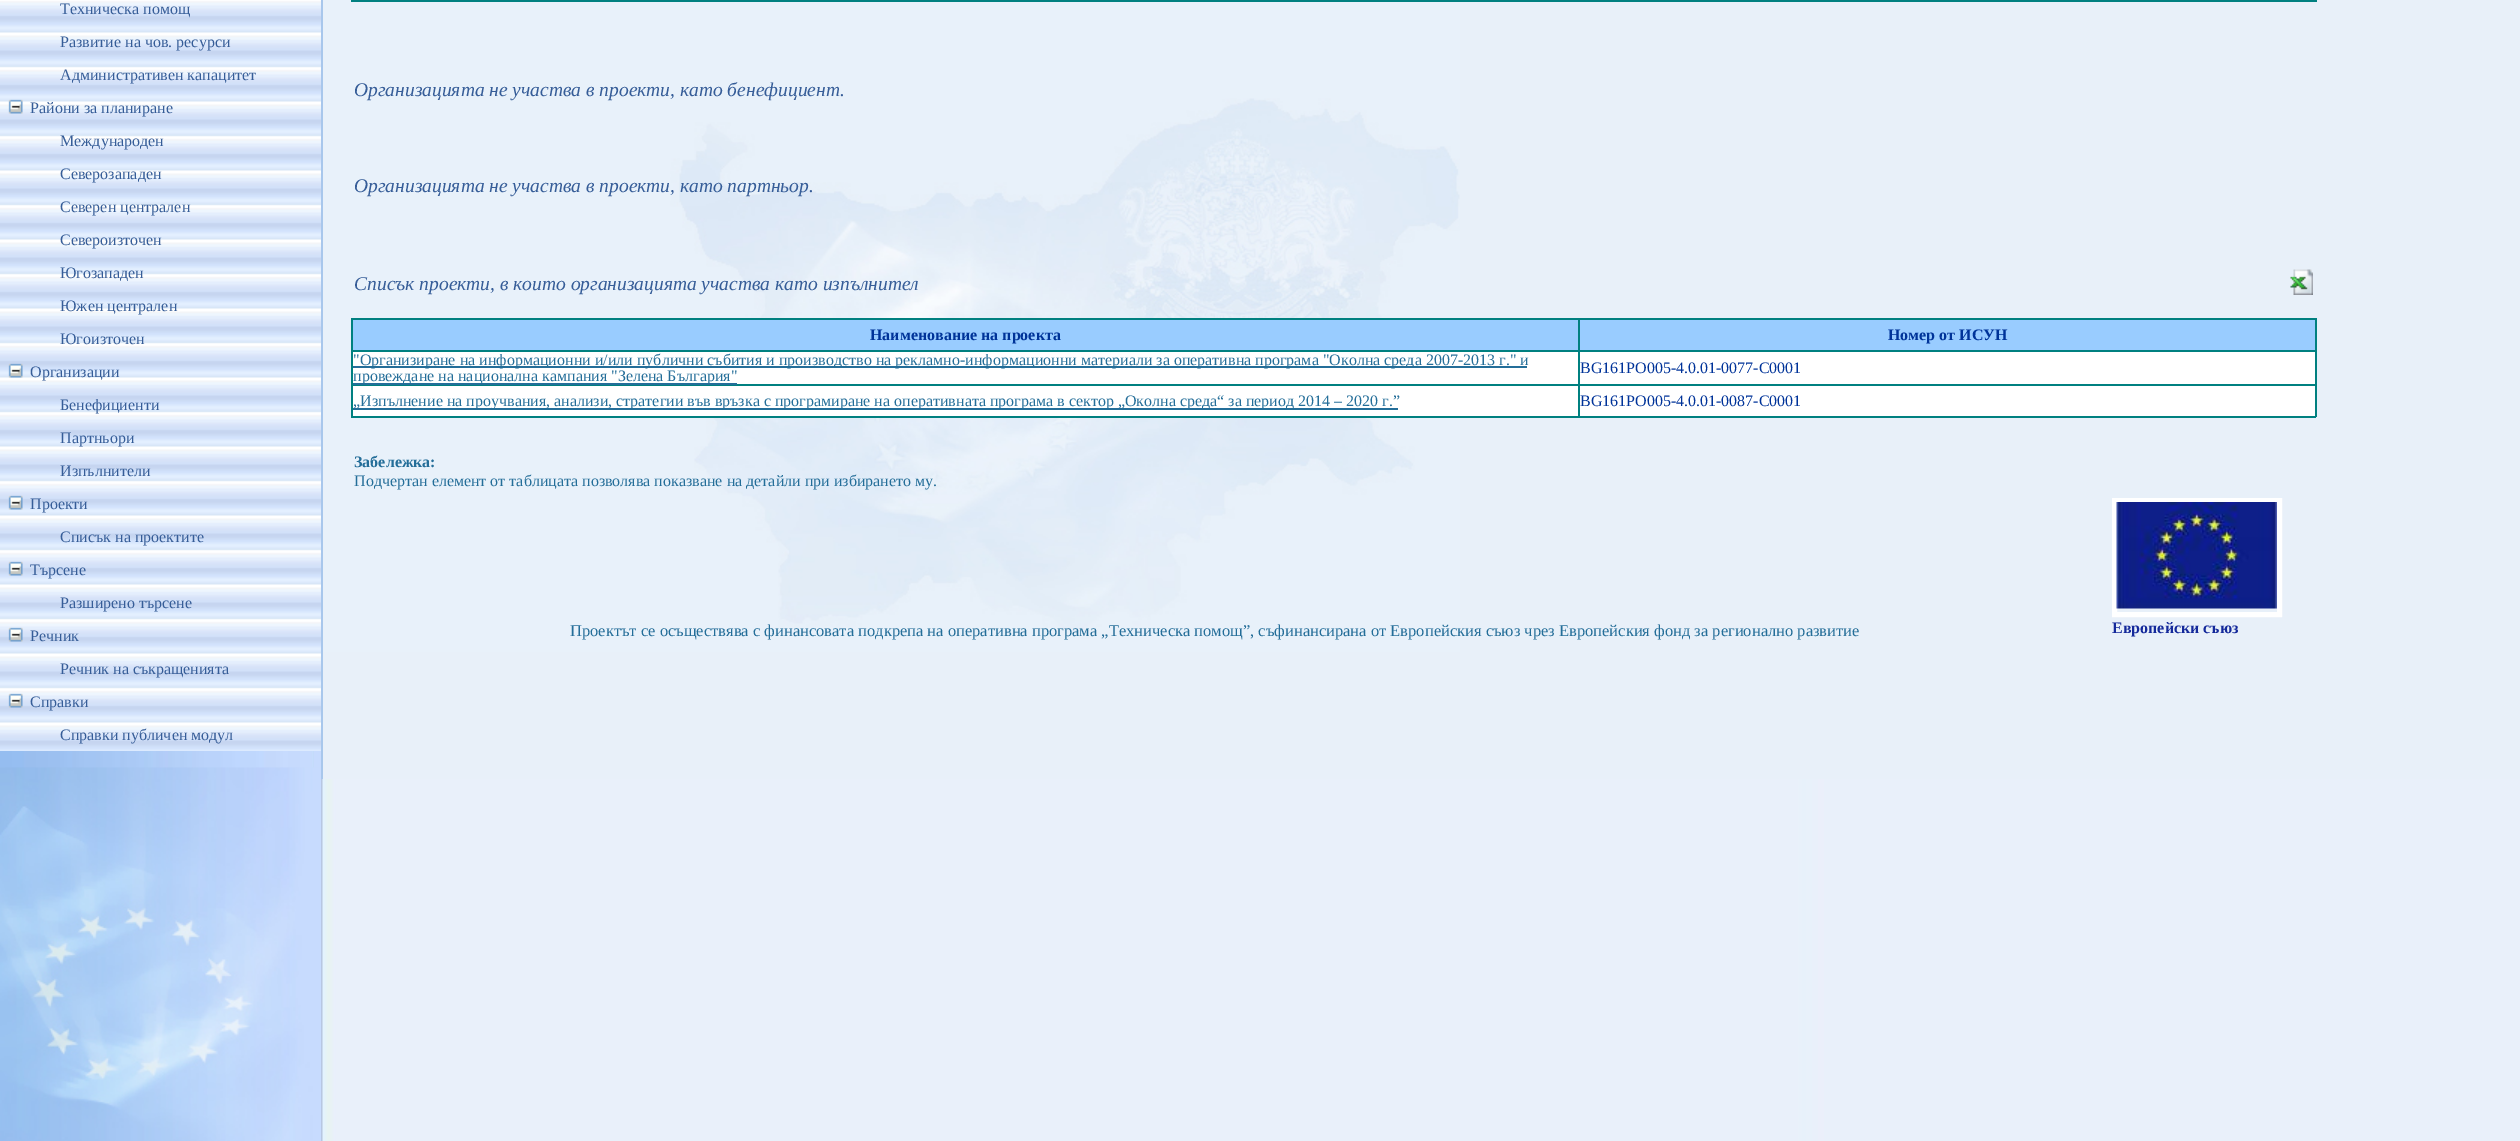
%!PS
<< /PageSize [2520 1141] >> setpagedevice
/w/setlinewidth load def
/C { dup -16 bitshift 255 div exch dup -8 bitshift 255 and 255 div exch 255 and 255 div setrgbcolor } def
/F { [ exch dup neg 0 0 3 -1 roll 0 0 ] selectfont } def
/T { moveto show } def
/R { rectfill } def
/I { 5 dict begin { /h /w /y /x /name } { exch def } forall
  gsave x y translate w h scale
  w h 8 [w 0 0 h 0 0] name (r) file false 3 colorimage grestore end } def
0 1141 translate 1 -1 scale
4 setmiterlimit
16#FFFFFF C
0 0 2520 1141 R
(1.rgb) 0 751 2520 390 I
16#E8F0F9 C
323 0 2197 779 R
(2.rgb) 323 0 1137 652 I
16#C7DBFE C
314 751 7 17 R
16#A8C7EC C
321 0 2 779 R
(3.rgb) 0 0 321 751 I
/LiberationSerif-Regular 16 F
16#365D98 C
(Техническа помощ) 60 14 T
(Развитие на чов. ресурси) 60 47 T
(Административен капацитет) 60 80 T
(4.rgb) 8 99 15 15 I
(Райони за планиране) 30 113 T
(Международен) 60 146 T
(Северозападен) 60 179 T
(Северен централен) 60 212 T
(Североизточен) 60 245 T
(Югозападен) 60 278 T
(Южен централен) 60 311 T
(Югоизточен) 60 344 T
(5.rgb) 8 363 15 15 I
(Организации) 30 377 T
(Бенефициенти) 60 410 T
(Партньори) 60 443 T
(Изпълнители) 60 476 T
(6.rgb) 8 495 15 15 I
(Проекти) 30 509 T
(Списък на проектите) 60 542 T
(7.rgb) 8 561 15 15 I
(Търсене) 30 575 T
(Разширено търсене) 60 608 T
(8.rgb) 8 627 15 15 I
(Речник) 30 641 T
(Речник на съкращенията) 60 674 T
(9.rgb) 8 693 15 15 I
(Справки) 30 707 T
(Справки публичен модул) 60 740 T
(10.rgb) 0 767 321 374 I
16#008080 C
351 0 1966 2 R
/LiberationSerif-Italic 19.5 F
16#365D98 C
(Организацията не участва в проекти, като бенефициент.) 354 96 T
(Организацията не участва в проекти, като партньор.) 354 192 T
(Списък проекти, в които организацията участва като изпълнител) 354 290 T
(11.rgb) 2290 269 23 26 I
16#008080 C
351 318 1965 2 R
2315 318 2 99 R
351 416 1965 2 R
351 318 2 99 R
16#99CCFF C
353 320 1962 30 R
/LiberationSerif-Bold 16 F
16#003399 C
(Наименование на проекта) 870 340 T
16#008080 C
1578 350 738 2 R
1578 384 738 2 R
1578 384 2 33 R
351 384 1229 2 R
1578 350 2 36 R
351 350 1229 2 R
1578 318 2 33 R
16#003399 C
(Номер от ИСУН) 1888 340 T
16#FFFFFF C
353 352 1225 32 R
16#246E99 C
353 366 1174 2 R
/LiberationSerif-Regular 16 F
("Организиране на информационни и/или публични събития и производство на рекламно-информационни материали за оперативна програма "Околна среда 2007-2013 г." и) 353 365 T
353 383 384 2 R
(провеждане на национална кампания "Зелена България") 353 381 T
16#FFFFFF C
1580 352 735 32 R
16#003399 C
(BG161PO005-4.0.01-0077-C0001) 1580 373 T
16#FFFFFF C
353 386 1225 30 R
16#246E99 C
353 408 1045 2 R
(„Изпълнение на проучвания, анализи, стратегии във връзка с програмиране на оперативната програма в сектор „Околна среда“ за период 2014 – 2020 г.”) 353 406 T
16#FFFFFF C
1580 386 735 30 R
16#003399 C
(BG161PO005-4.0.01-0087-C0001) 1580 406 T
/LiberationSerif-Bold 16 F
16#246E99 C
(Забележка:) 354 467 T
/LiberationSerif-Regular 16 F
(Подчертан елемент от таблицата позволява показване на детайли при избирането му.) 354 486 T
/LiberationSerif-Regular 16.5 F
(Проектът се осъществява с финансовата подкрепа на оперативна програма „Техническа помощ”, съфинансирана от Европейския съюз чрез Европейския фонд за регионално развитие) 570 636 T
16#FFFFFF C
5 w
2114.5 500.5 165 114 rectstroke
(12.rgb) 2116 502 161 107 I
/LiberationSerif-Bold 16 F
16#14299B C
(Европейски съюз) 2112 633 T
showpage
